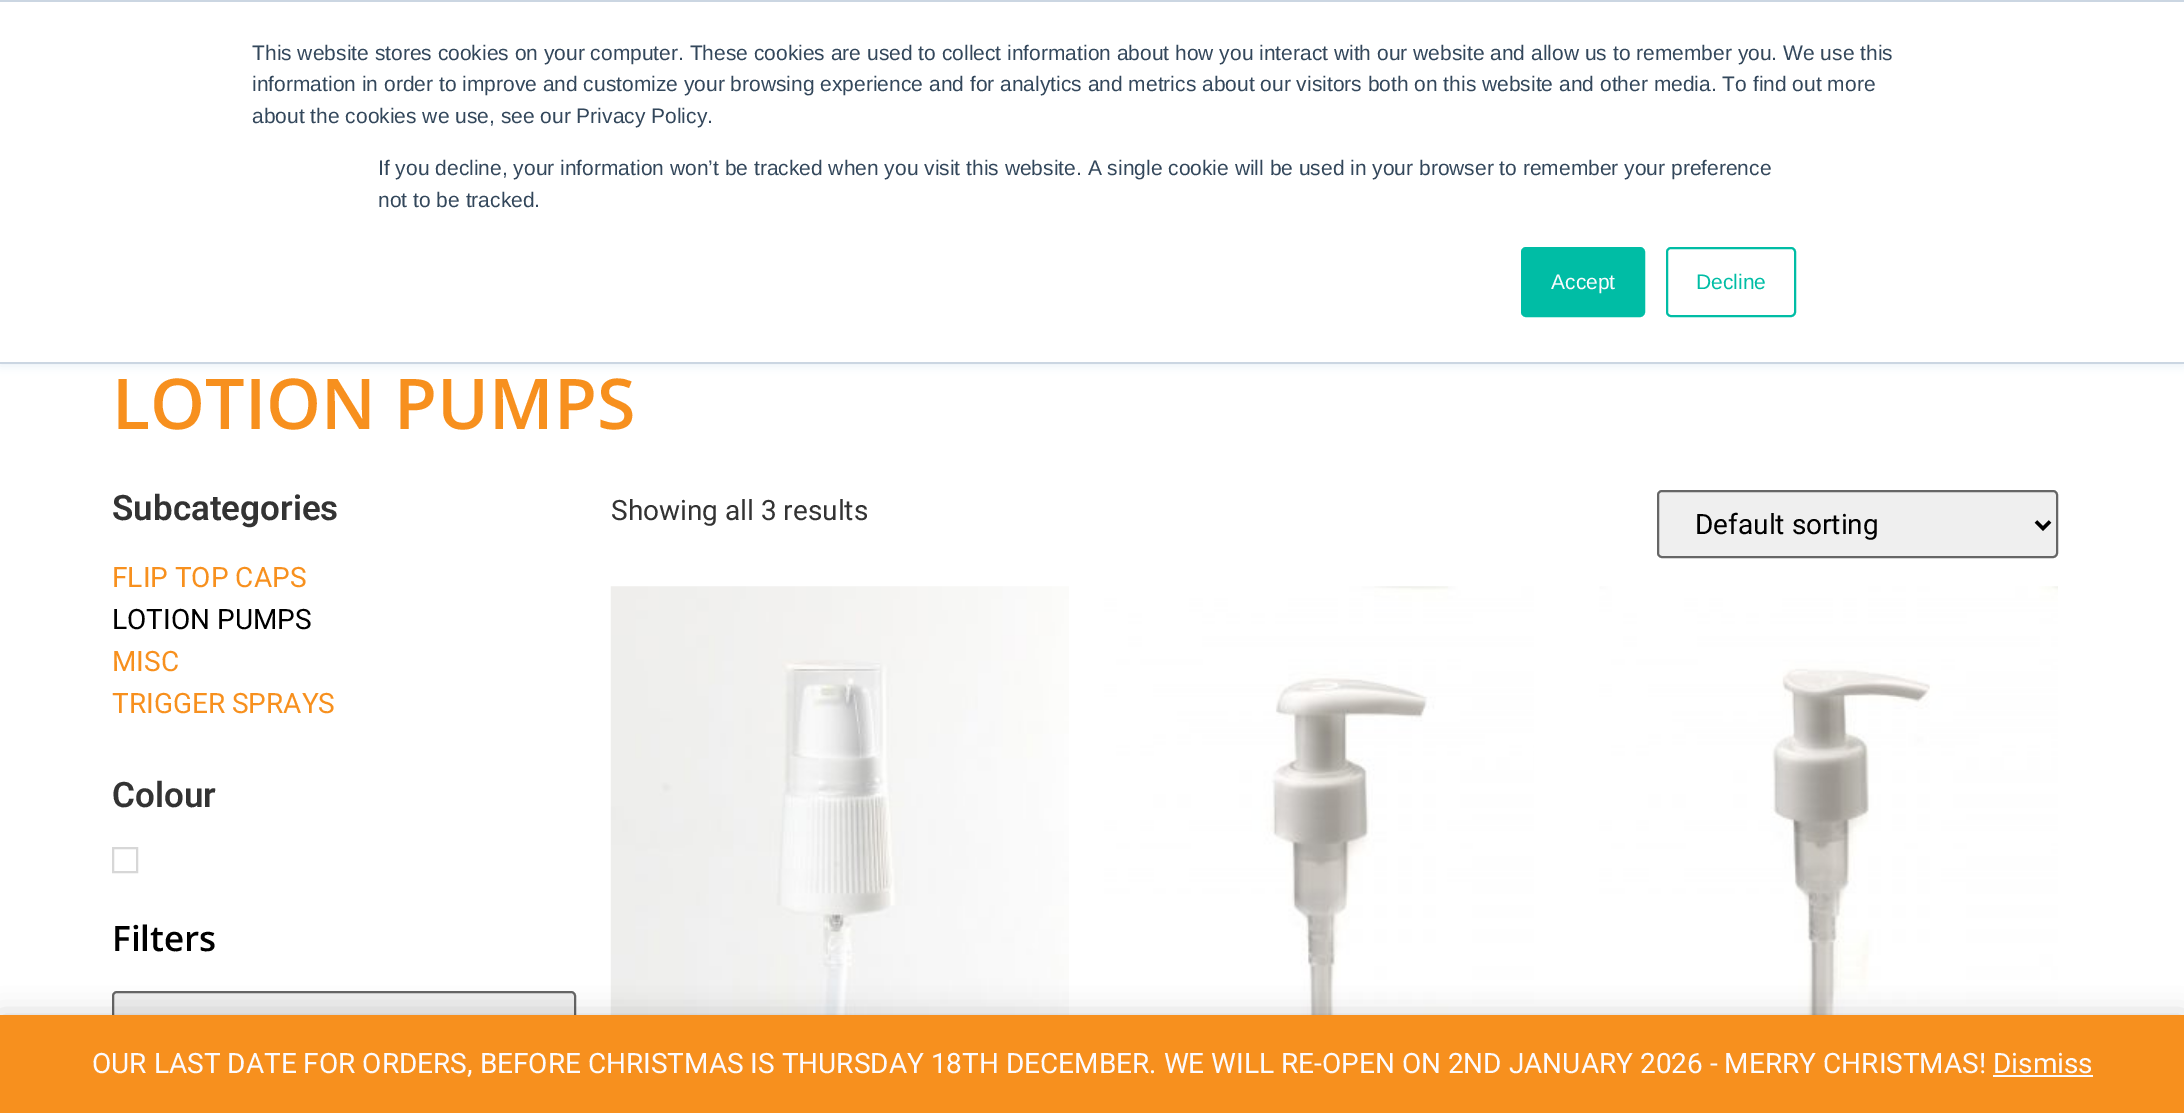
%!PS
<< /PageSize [2184 1113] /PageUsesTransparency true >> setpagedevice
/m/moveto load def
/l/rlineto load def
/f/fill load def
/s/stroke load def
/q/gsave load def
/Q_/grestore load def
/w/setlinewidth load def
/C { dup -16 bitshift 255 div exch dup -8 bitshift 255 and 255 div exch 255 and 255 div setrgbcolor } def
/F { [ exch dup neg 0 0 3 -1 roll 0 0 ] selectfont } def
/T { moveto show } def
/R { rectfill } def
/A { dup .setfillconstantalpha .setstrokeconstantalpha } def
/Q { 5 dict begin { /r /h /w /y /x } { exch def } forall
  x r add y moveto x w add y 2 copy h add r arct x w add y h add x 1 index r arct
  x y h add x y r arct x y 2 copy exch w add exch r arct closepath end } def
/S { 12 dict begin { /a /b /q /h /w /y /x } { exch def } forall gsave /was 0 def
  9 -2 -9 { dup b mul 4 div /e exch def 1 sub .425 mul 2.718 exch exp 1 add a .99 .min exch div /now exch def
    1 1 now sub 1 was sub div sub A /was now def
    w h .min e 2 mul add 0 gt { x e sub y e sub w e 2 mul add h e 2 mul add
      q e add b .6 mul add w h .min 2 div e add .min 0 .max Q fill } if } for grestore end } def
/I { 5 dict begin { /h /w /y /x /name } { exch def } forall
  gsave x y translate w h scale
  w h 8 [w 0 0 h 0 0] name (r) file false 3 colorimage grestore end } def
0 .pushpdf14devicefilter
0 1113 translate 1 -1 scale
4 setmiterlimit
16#FFFFFF C
0 0 2184 1113 R
16#EAF0F6 C
0 2 2184 364 0 4.5 1 S
16#FFFFFF C
0 2 2184 360 R
16#CBD6E2 C
0 0 2184 2 R
0 362 2184 2 R
/LiberationSans-Regular 21 F
16#33475B C
(This website stores cookies on your computer. These cookies are used to collect information about how you interact with our website and allow us to remember you. We use this) 252 60 T
(information in order to improve and customize your browsing experience and for analytics and metrics about our visitors both on this website and other media. To find out more) 252 91 T
(about the cookies we use, see our Privacy Policy.) 252 123 T
(If you decline, your information won’t be tracked when you visit this website. A single cookie will be used in your browser to remember your preference) 378 175 T
(not to be tracked.) 378 207 T
16#00BDA5 C
1522 248 122 68 4 Q q f Q_
2 w
s
16#FCFBFE C
(Accept) 1551 289 T
16#00BDA5 C
1667 248 128 68 4 Q s
(Decline) 1696 289 T
/OpenSans-SemiBold 70 F
16#F7901E C
(LOTION PUMPS) 112 429 T
/Roboto-SemiBold 35 F
16#333333 C
(Subcategories) 112 520 T
/Roboto-Regular 28 F
16#F7901E C
(FLIP TOP CAPS) 112 587 T
16#000000 C
(LOTION PUMPS) 112 629 T
16#F7901E C
(MISC) 112 671 T
(TRIGGER SPRAYS) 112 713 T
/Roboto-SemiBold 35 F
16#333333 C
(Colour) 112 807 T
16#D7D7D7 C
113 848 24 24 rectstroke
/OpenSans-SemiBold 35 F
16#000000 C
(Filters) 112 951 T
16#EFEFEF C
113 992 462 66 4 Q q f Q_
16#666666 C
s
/Roboto-Regular 28 F
16#333333 C
(Showing all 3 results) 611 520 T
16#EFEFEF C
1658 491 399 66 4 Q q f Q_
16#666666 C
s
16#000000 C
3.5 w
2036 521.5 m 7 7 l 7 -7 l s
(Default sorting) 1695 534 T
(1.rgb) 610 586 459 429 I
(2.rgb) 1104 586 430 429 I
(3.rgb) 1599 586 459 429 I
0 1017 2184 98 0 14 .2 S
16#F7901E C
0 1015 2184 98 R
16#FCFBFE C
(OUR LAST DATE FOR ORDERS, BEFORE CHRISTMAS IS THURSDAY 18TH DECEMBER. WE WILL RE-OPEN ON 2ND JANUARY 2026 - MERRY CHRISTMAS! Dismiss) 92 1073 T
1993 1075 100 2 R
.poppdf14devicefilter showpage
